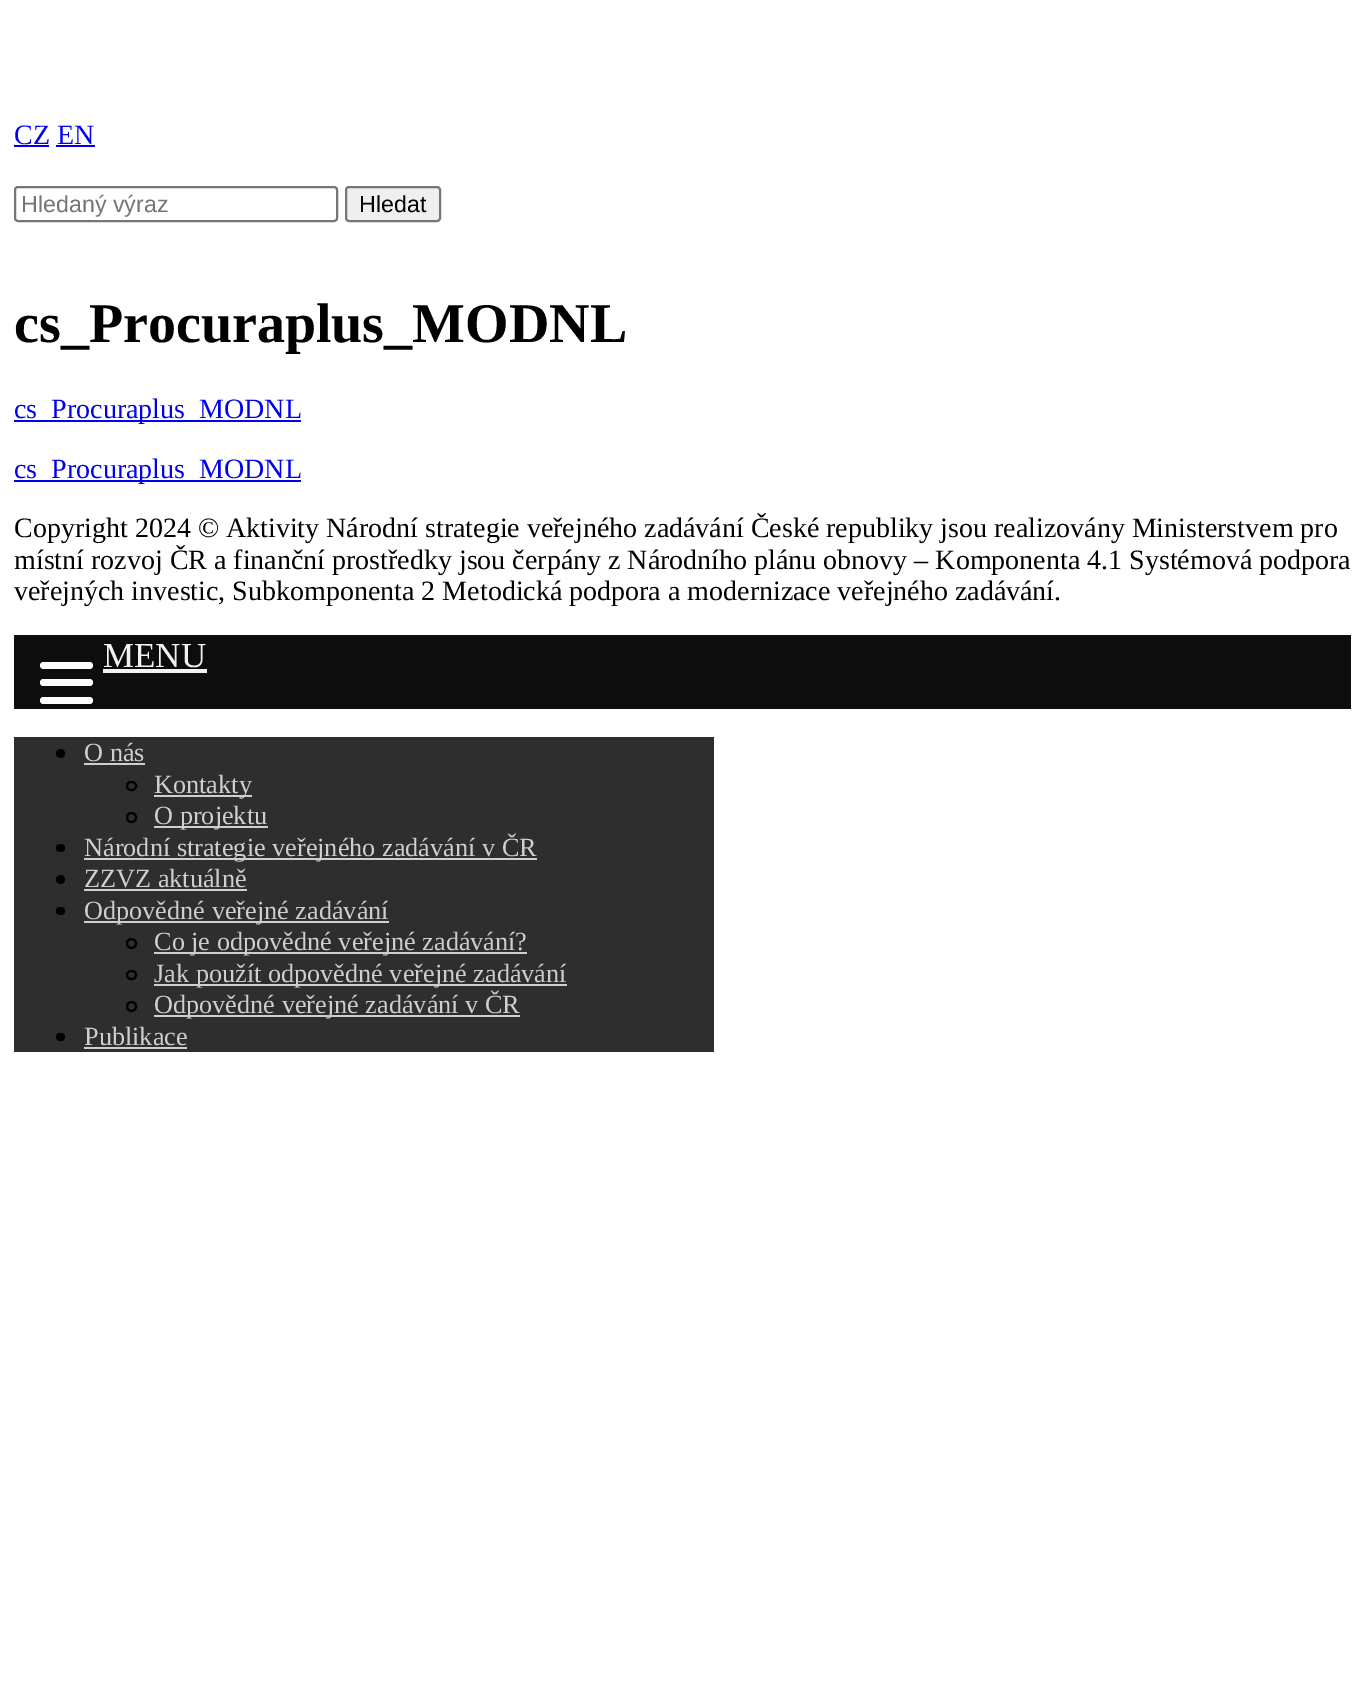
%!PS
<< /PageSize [1365 1694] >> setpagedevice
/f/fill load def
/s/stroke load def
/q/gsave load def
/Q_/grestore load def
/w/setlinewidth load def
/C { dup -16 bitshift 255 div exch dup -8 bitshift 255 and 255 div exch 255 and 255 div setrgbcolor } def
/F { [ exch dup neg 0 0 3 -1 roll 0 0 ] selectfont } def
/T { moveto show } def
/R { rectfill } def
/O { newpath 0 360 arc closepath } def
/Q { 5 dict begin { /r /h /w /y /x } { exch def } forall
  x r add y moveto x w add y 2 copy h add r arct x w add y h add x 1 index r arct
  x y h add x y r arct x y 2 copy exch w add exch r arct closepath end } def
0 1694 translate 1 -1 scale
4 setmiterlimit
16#FFFFFF C
0 0 1365 1694 R
/LiberationSerif-Regular 28 F
16#0000EE C
(CZ EN) 14 144 T
14 145 35 2 R
56 145 39 2 R
16#767676 C
2 w
15 187 322 34 3 Q s
/LiberationSans-Regular 23.25 F
16#757575 C
(Hledaný výraz) 21 212 T
16#EFEFEF C
346 187 94 34 3 Q q f Q_
16#767676 C
s
16#000000 C
(Hledat) 359 212 T
/LiberationSerif-Bold 56 F
(cs_Procuraplus_MODNL) 14 342 T
16#0000EE C
14 420 287 2 R
/LiberationSerif-Regular 28 F
(cs_Procuraplus_MODNL) 14 418 T
14 480 287 2 R
(cs_Procuraplus_MODNL) 14 478 T
16#000000 C
(Copyright 2024 © Aktivity Národní strategie veřejného zadávání České republiky jsou realizovány Ministerstvem pro) 14 537 T
(místní rozvoj ČR a finanční prostředky jsou čerpány z Národního plánu obnovy – Komponenta 4.1 Systémová podpora) 14 569 T
(veřejných investic, Subkomponenta 2 Metodická podpora a modernizace veřejného zadávání.) 14 600 T
16#0D0D0D C
14 635 1337 74 R
/LiberationSerif-Regular 35 F
16#F2F2F2 C
(MENU) 103 667 T
103 669 104 4 R
16#FFFFFF C
40 662 53 7 3.5 Q f
40 679 53 7 3.5 Q f
40 697 53 7 3.5 Q f
16#2E2E2E C
14 737 700 315 R
16#000000 C
60.5 753.5 4.5 O f
/LiberationSerif-Regular 26.25 F
16#CFCFCF C
(O nás) 84 761 T
84 763 61 2 R
16#000000 C
127 782 9 8 4 Q s
16#CFCFCF C
154 795 98 2 R
(Kontakty) 154 793 T
16#000000 C
131.5 817.5 4.5 O s
16#CFCFCF C
154 826 114 2 R
(O projektu) 154 824 T
16#000000 C
56 844 9 8 4 Q f
16#CFCFCF C
84 858 453 2 R
(Národní strategie veřejného zadávání v ČR) 84 856 T
16#000000 C
60.5 879.5 4.5 O f
16#CFCFCF C
(ZZVZ aktuálně) 84 887 T
84 889 163 2 R
16#000000 C
56 907 9 8 4 Q f
16#CFCFCF C
84 921 305 2 R
(Odpovědné veřejné zadávání) 84 919 T
16#000000 C
131.5 943.5 4.5 O s
16#CFCFCF C
154 952 373 2 R
(Co je odpovědné veřejné zadávání?) 154 950 T
16#000000 C
127 971 9 8 4 Q s
16#CFCFCF C
154 984 413 2 R
(Jak použít odpovědné veřejné zadávání) 154 982 T
16#000000 C
131.5 1006.5 4.5 O s
16#CFCFCF C
154 1015 366 2 R
(Odpovědné veřejné zadávání v ČR) 154 1013 T
16#000000 C
56 1033 9 8 4 Q f
16#CFCFCF C
(Publikace) 84 1045 T
84 1047 103 2 R
showpage
